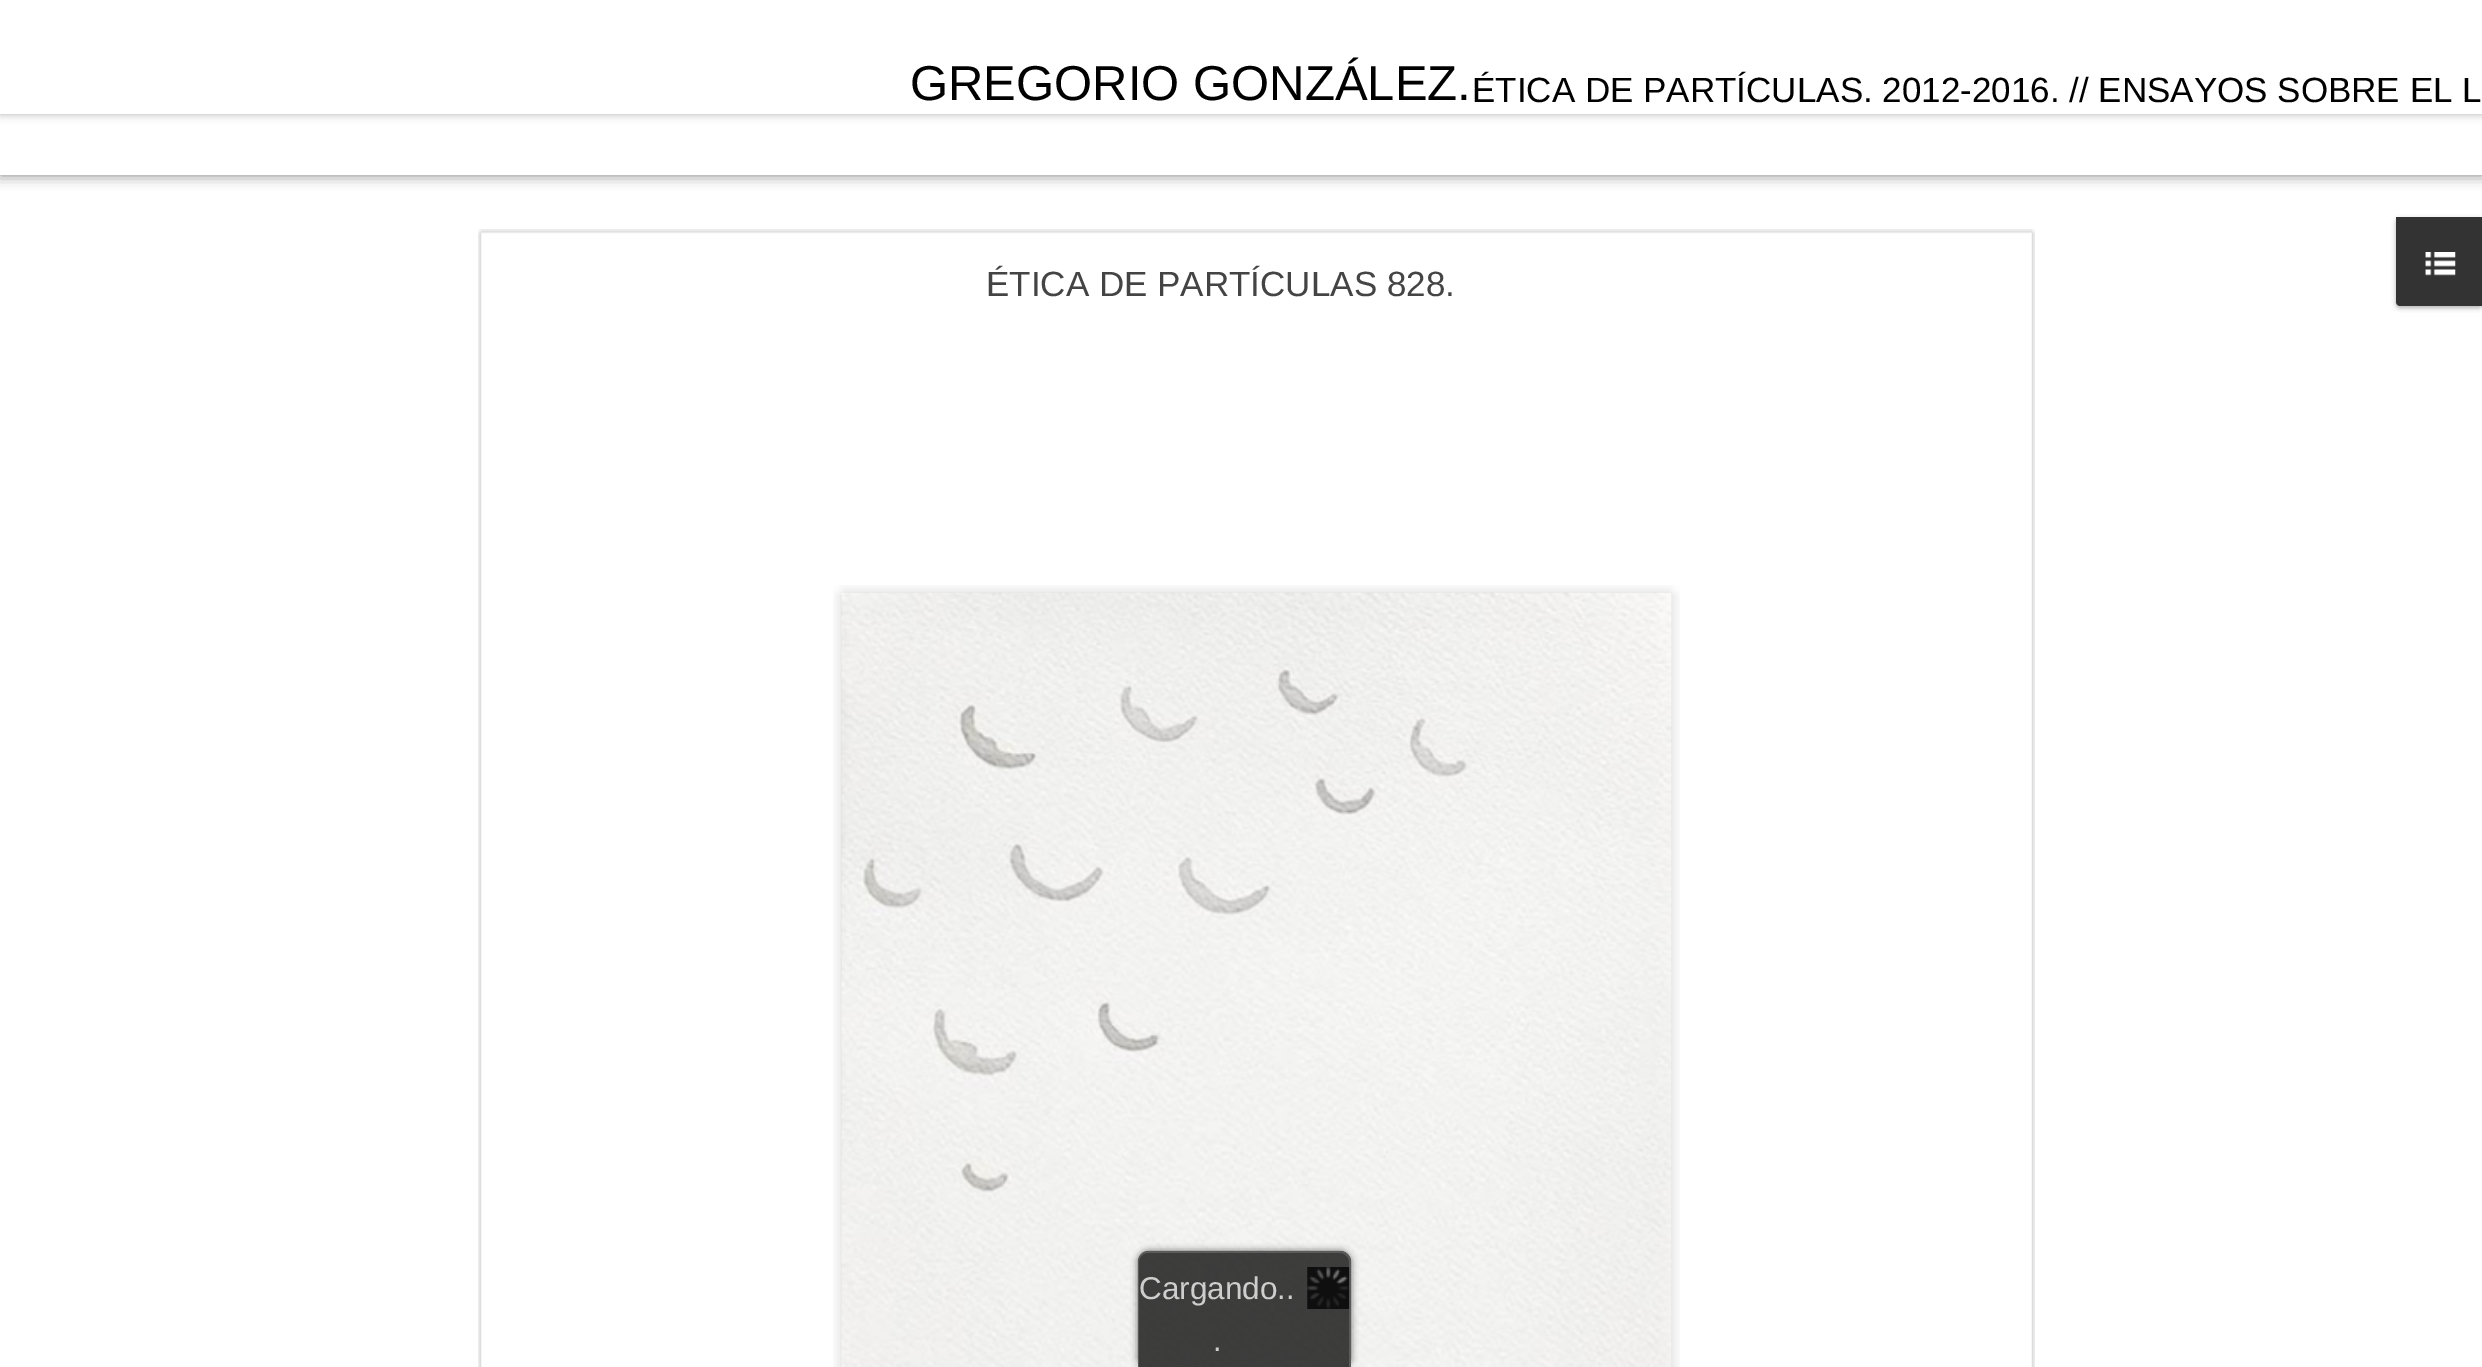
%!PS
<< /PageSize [2482 1367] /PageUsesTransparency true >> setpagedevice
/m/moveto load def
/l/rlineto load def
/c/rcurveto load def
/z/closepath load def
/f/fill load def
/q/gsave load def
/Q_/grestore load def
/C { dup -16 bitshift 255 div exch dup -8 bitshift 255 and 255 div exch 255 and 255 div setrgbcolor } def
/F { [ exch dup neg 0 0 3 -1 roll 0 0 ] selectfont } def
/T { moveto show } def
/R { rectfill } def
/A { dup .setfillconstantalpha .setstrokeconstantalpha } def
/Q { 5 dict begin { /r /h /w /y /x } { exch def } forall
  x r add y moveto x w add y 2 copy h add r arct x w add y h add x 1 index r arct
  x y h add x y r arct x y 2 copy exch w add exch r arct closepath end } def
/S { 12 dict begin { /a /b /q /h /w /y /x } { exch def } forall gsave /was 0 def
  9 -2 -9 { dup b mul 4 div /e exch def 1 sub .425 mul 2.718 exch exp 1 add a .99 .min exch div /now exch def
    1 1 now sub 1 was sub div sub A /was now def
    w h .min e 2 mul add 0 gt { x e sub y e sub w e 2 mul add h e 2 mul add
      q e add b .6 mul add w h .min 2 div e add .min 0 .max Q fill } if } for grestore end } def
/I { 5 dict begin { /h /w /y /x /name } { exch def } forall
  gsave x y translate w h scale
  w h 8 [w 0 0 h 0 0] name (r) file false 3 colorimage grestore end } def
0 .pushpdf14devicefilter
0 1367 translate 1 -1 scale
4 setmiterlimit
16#FFFFFF C
0 0 2482 1367 R
16#000000 C
0 114 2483 61 0 7 .5 S
16#FFFFFF C
0 114 2482 61 R
16#000000 C
0 0 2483 114 0 4.5 .3 S
16#FFFFFF C
0 0 2482 114 R
/LiberationSans-Regular 49 F
16#000000 C
(GREGORIO GONZÁLEZ.) 910 100 T
/LiberationSans-Regular 35 F
(ÉTICA DE PARTÍCULAS. 2012-2016. // ENSAYOS SOBRE EL L) 1472 102 T
(1.rgb) 478 229 1557 1138 I
16#444444 C
(ÉTICA DE PARTÍCULAS 828.) 986 296 T
(2.rgb) 833 585 847 782 I
(3.rgb) 841 592 831 775 I
16#000000 C
2396 219 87 89 4 2.5 .3 S
16#333333 C
2396 217 m 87 0 l 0 89 l -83 0 l -2 0 -4 -2 -4 -4 c z f
(4.rgb) 2425 252 31 24 I
q
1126 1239 m 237 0 l 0 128 l -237 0 l z 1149 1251 m 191 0 l 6 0 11 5 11 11 c 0 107 l -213 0 l 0 -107 l 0 -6 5 -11 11 -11 c z eoclip newpath
1138 1251 213 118 11 3.5 .75 S
Q_
0.75 A
16#000000 C
1149 1251 m 191 0 l 6 0 11 5 11 11 c 0 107 l -213 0 l 0 -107 l 0 -6 5 -11 11 -11 c z f
16#666666 C
1148 1251 m 192 0 l 6 0 11 5 11 11 c 0 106 l -213 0 l 0 -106 l 0 -6 4 -11 10 -11 c z 1148 1253 m 192 0 l 5 0 9 4 9 9 c 0 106 l -210 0 l 0 -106 l 0 -5 4 -9 9 -9 c z eofill
1 A
(5.rgb) 1307 1267 43 42 I
/LiberationSans-Regular 31.5 F
16#CECECE C
(Cargando..) 1139 1299 T
(.) 1213 1351 T
.poppdf14devicefilter showpage
